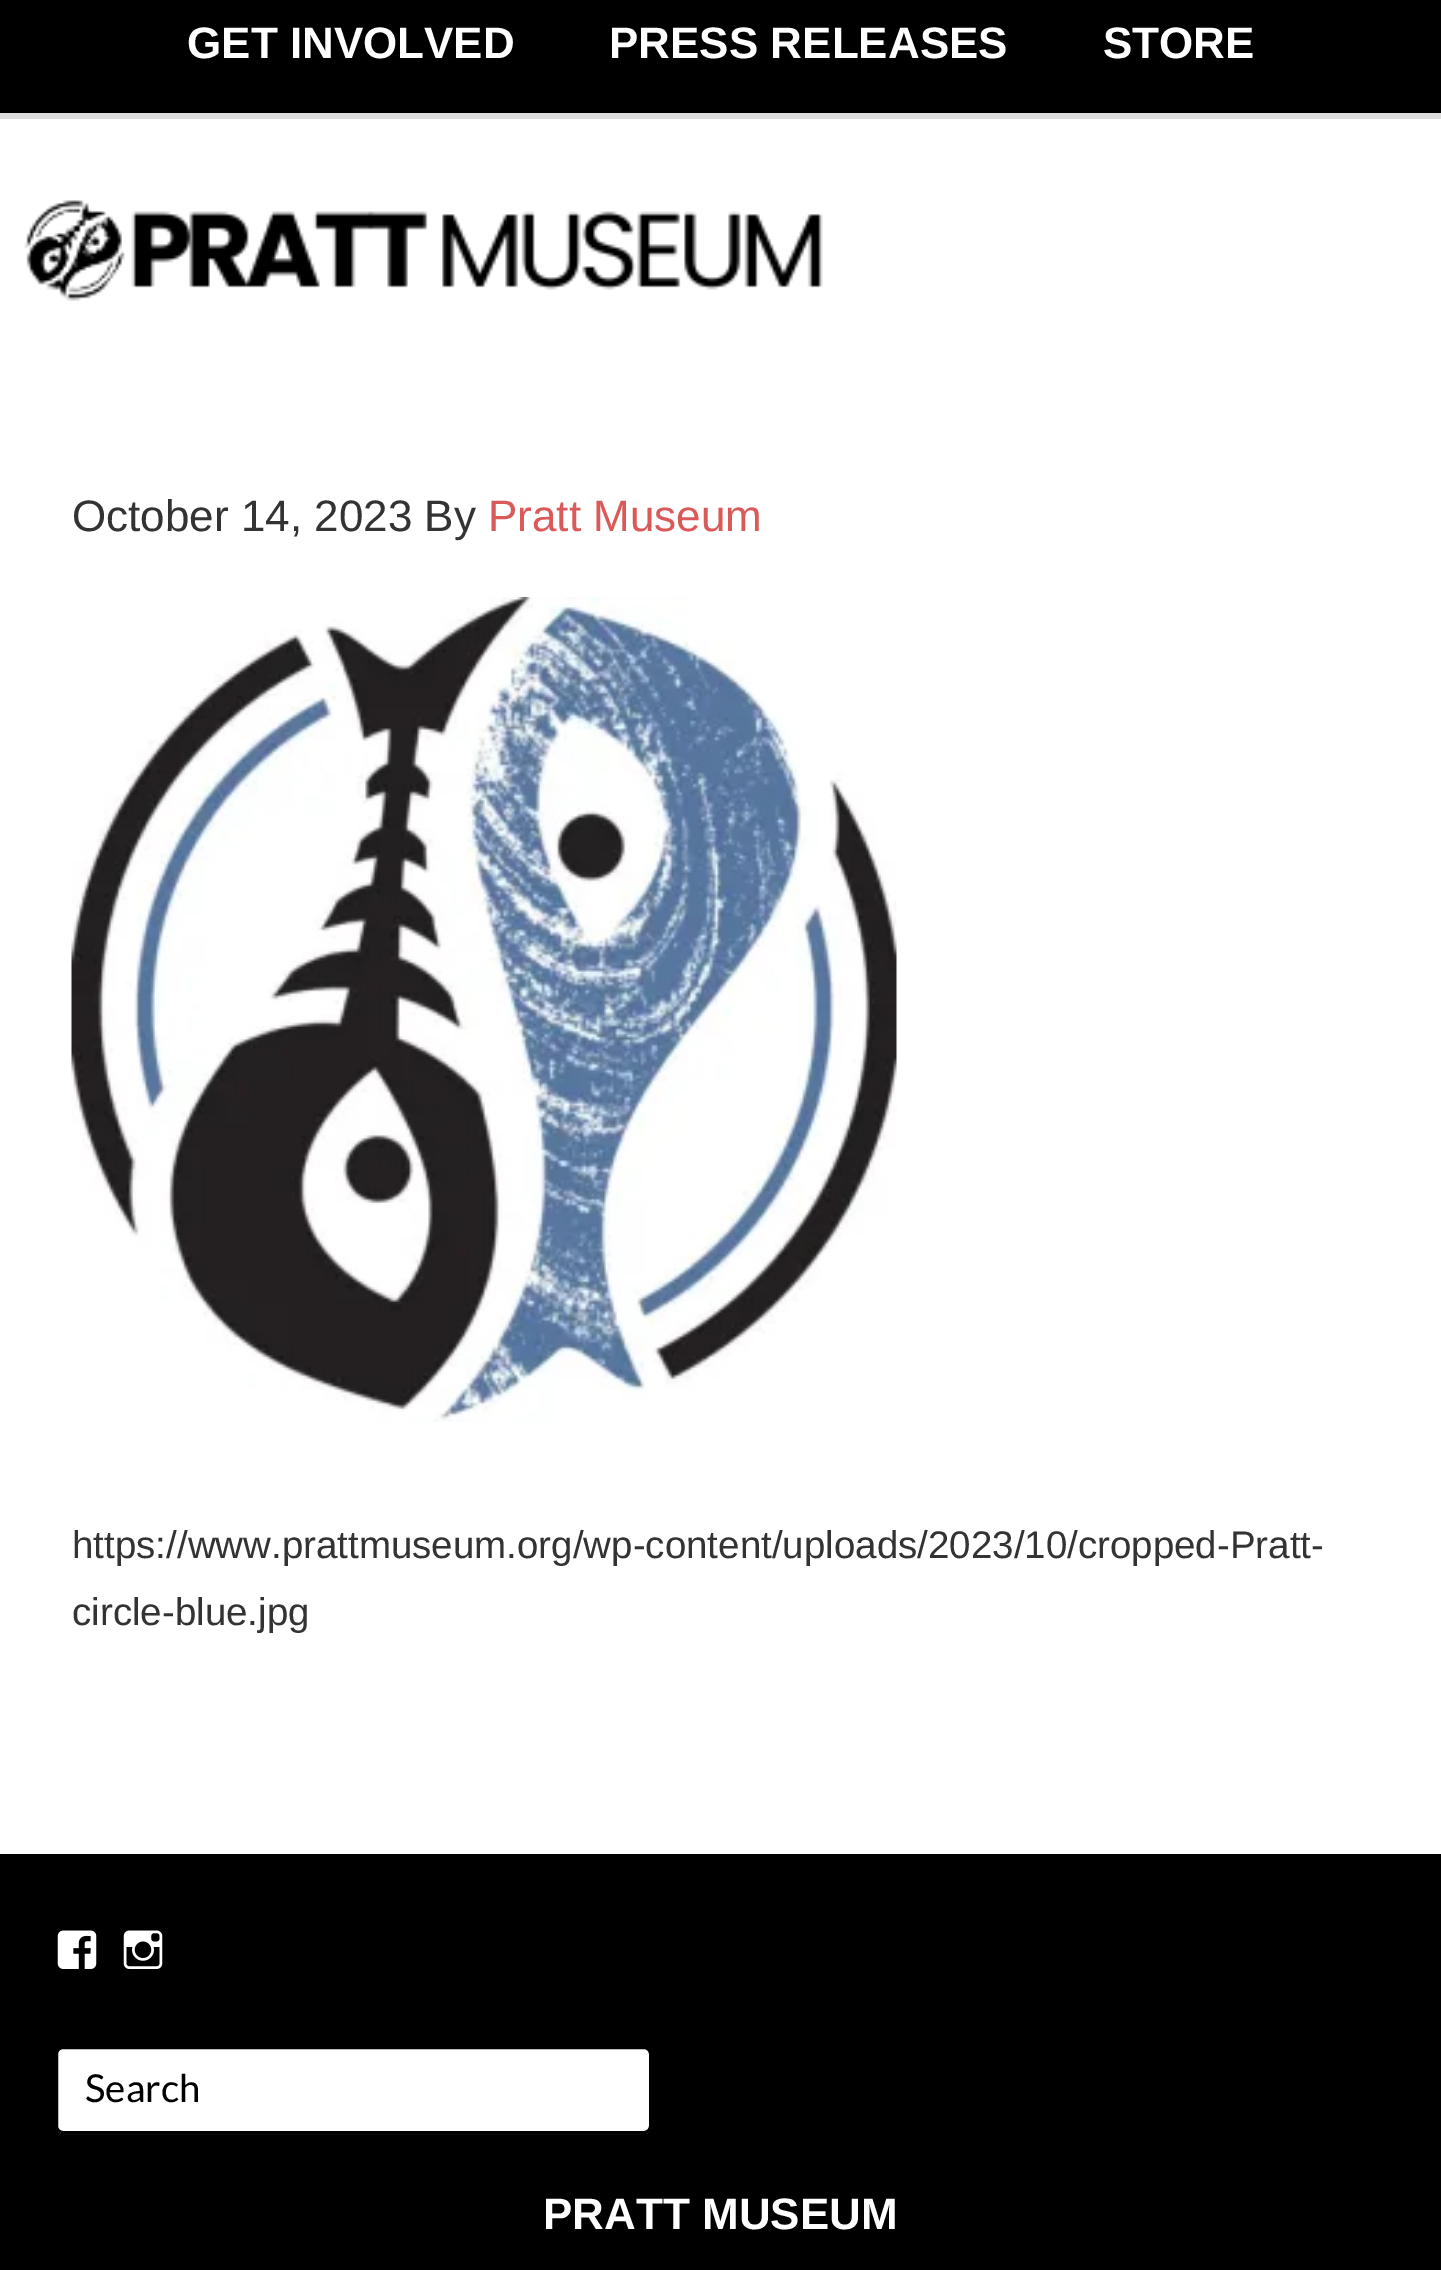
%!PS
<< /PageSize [1441 2270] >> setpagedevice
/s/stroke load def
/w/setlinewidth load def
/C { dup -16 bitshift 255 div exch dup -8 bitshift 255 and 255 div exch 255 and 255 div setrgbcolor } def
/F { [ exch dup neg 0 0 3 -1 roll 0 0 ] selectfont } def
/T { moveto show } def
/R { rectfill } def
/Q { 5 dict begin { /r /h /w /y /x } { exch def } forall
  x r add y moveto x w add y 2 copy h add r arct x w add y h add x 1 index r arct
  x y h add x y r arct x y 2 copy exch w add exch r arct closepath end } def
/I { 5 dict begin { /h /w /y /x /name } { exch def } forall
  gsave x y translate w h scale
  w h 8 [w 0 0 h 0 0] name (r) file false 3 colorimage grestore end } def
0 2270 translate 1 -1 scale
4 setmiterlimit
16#FFFFFF C
0 0 1441 2270 R
16#000000 C
0 0 1441 113 R
16#DDDDDD C
0 113 1441 6 R
/LiberationSans-Bold 44 F
16#FFFFFF C
(GET INVOLVED) 187 58 T
(PRESS RELEASES) 609 58 T
(STORE) 1103 58 T
(1.rgb) 24 200 799 101 I
/LiberationSans-Regular 44 F
16#333333 C
(October 14, 2023 By) 72 531 T
16#DA5A59 C
(Pratt Museum) 488 531 T
(2.rgb) 71 597 826 825 I
/LiberationSans-Regular 38.5 F
16#333333 C
(https://www.prattmuseum.org/wp-content/uploads/2023/10/cropped-Pratt-) 72 1558 T
(circle-blue.jpg) 72 1625 T
16#000000 C
0 1854 1441 416 R
(3.rgb) 57 1930 40 39 I
(4.rgb) 123 1930 40 39 I
(5.rgb) 57 2049 595 86 I
3 w
56.5 2047.5 594 85 6.5 Q s
/Lato-Regular 38.5 F
(Search) 85 2102 T
/LiberationSans-Bold 44 F
16#FFFFFF C
(PRATT MUSEUM) 543 2229 T
showpage
